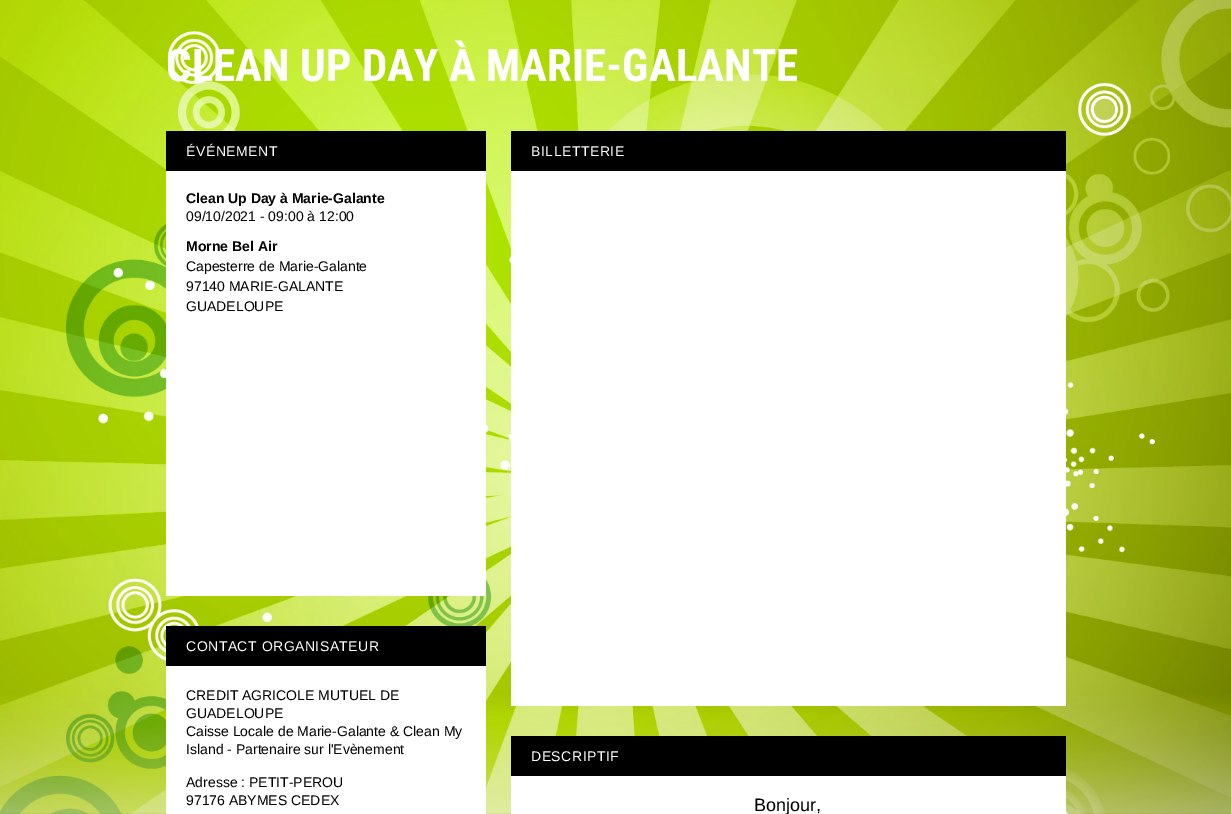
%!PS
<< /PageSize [1231 814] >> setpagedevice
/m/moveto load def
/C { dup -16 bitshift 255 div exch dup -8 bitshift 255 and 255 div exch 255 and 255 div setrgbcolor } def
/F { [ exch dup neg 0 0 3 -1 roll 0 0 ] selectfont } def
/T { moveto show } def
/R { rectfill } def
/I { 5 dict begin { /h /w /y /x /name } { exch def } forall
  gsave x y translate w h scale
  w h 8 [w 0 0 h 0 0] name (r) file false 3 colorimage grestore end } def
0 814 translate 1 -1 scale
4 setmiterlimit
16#FFFFFF C
0 0 1231 814 R
(1.rgb) 0 0 1231 814 I
/RobotoCondensed-Bold 45 F
(CLEAN UP DAY À MARIE-GALANTE) 166 81 T
16#000000 C
166 131 320 40 R
/LiberationSans-Regular 14 F
16#FFFFFF C
186 156 m .5 0 (ÉVÉNEMENT) ashow
166 171 320 425 R
/LiberationSans-Bold 14 F
16#000000 C
(Clean Up Day à Marie-Galante) 186 203 T
/LiberationSans-Regular 14 F
(09/10/2021 - 09:00 à 12:00) 186 221 T
/LiberationSans-Bold 14 F
(Morne Bel Air) 186 251 T
/LiberationSans-Regular 14 F
(Capesterre de Marie-Galante) 186 271 T
(97140 MARIE-GALANTE) 186 291 T
(GUADELOUPE) 186 311 T
166 626 320 40 R
16#FFFFFF C
186 651 m .5 0 (CONTACT ORGANISATEUR) ashow
166 666 320 148 R
16#000000 C
(CREDIT AGRICOLE MUTUEL DE) 186 700 T
(GUADELOUPE) 186 718 T
(Caisse Locale de Marie-Galante & Clean My) 186 736 T
(Island - Partenaire sur l'Evènement) 186 754 T
(Adresse : PETIT-PEROU) 186 787 T
(97176 ABYMES CEDEX) 186 805 T
511 131 555 40 R
16#FFFFFF C
531 156 m .5 0 (BILLETTERIE) ashow
511 171 555 535 R
16#000000 C
511 736 555 40 R
16#FFFFFF C
531 761 m .5 0 (DESCRIPTIF) ashow
511 776 555 38 R
/LiberationSans-Regular 18 F
16#000000 C
(Bonjour,) 754 811 T
showpage
